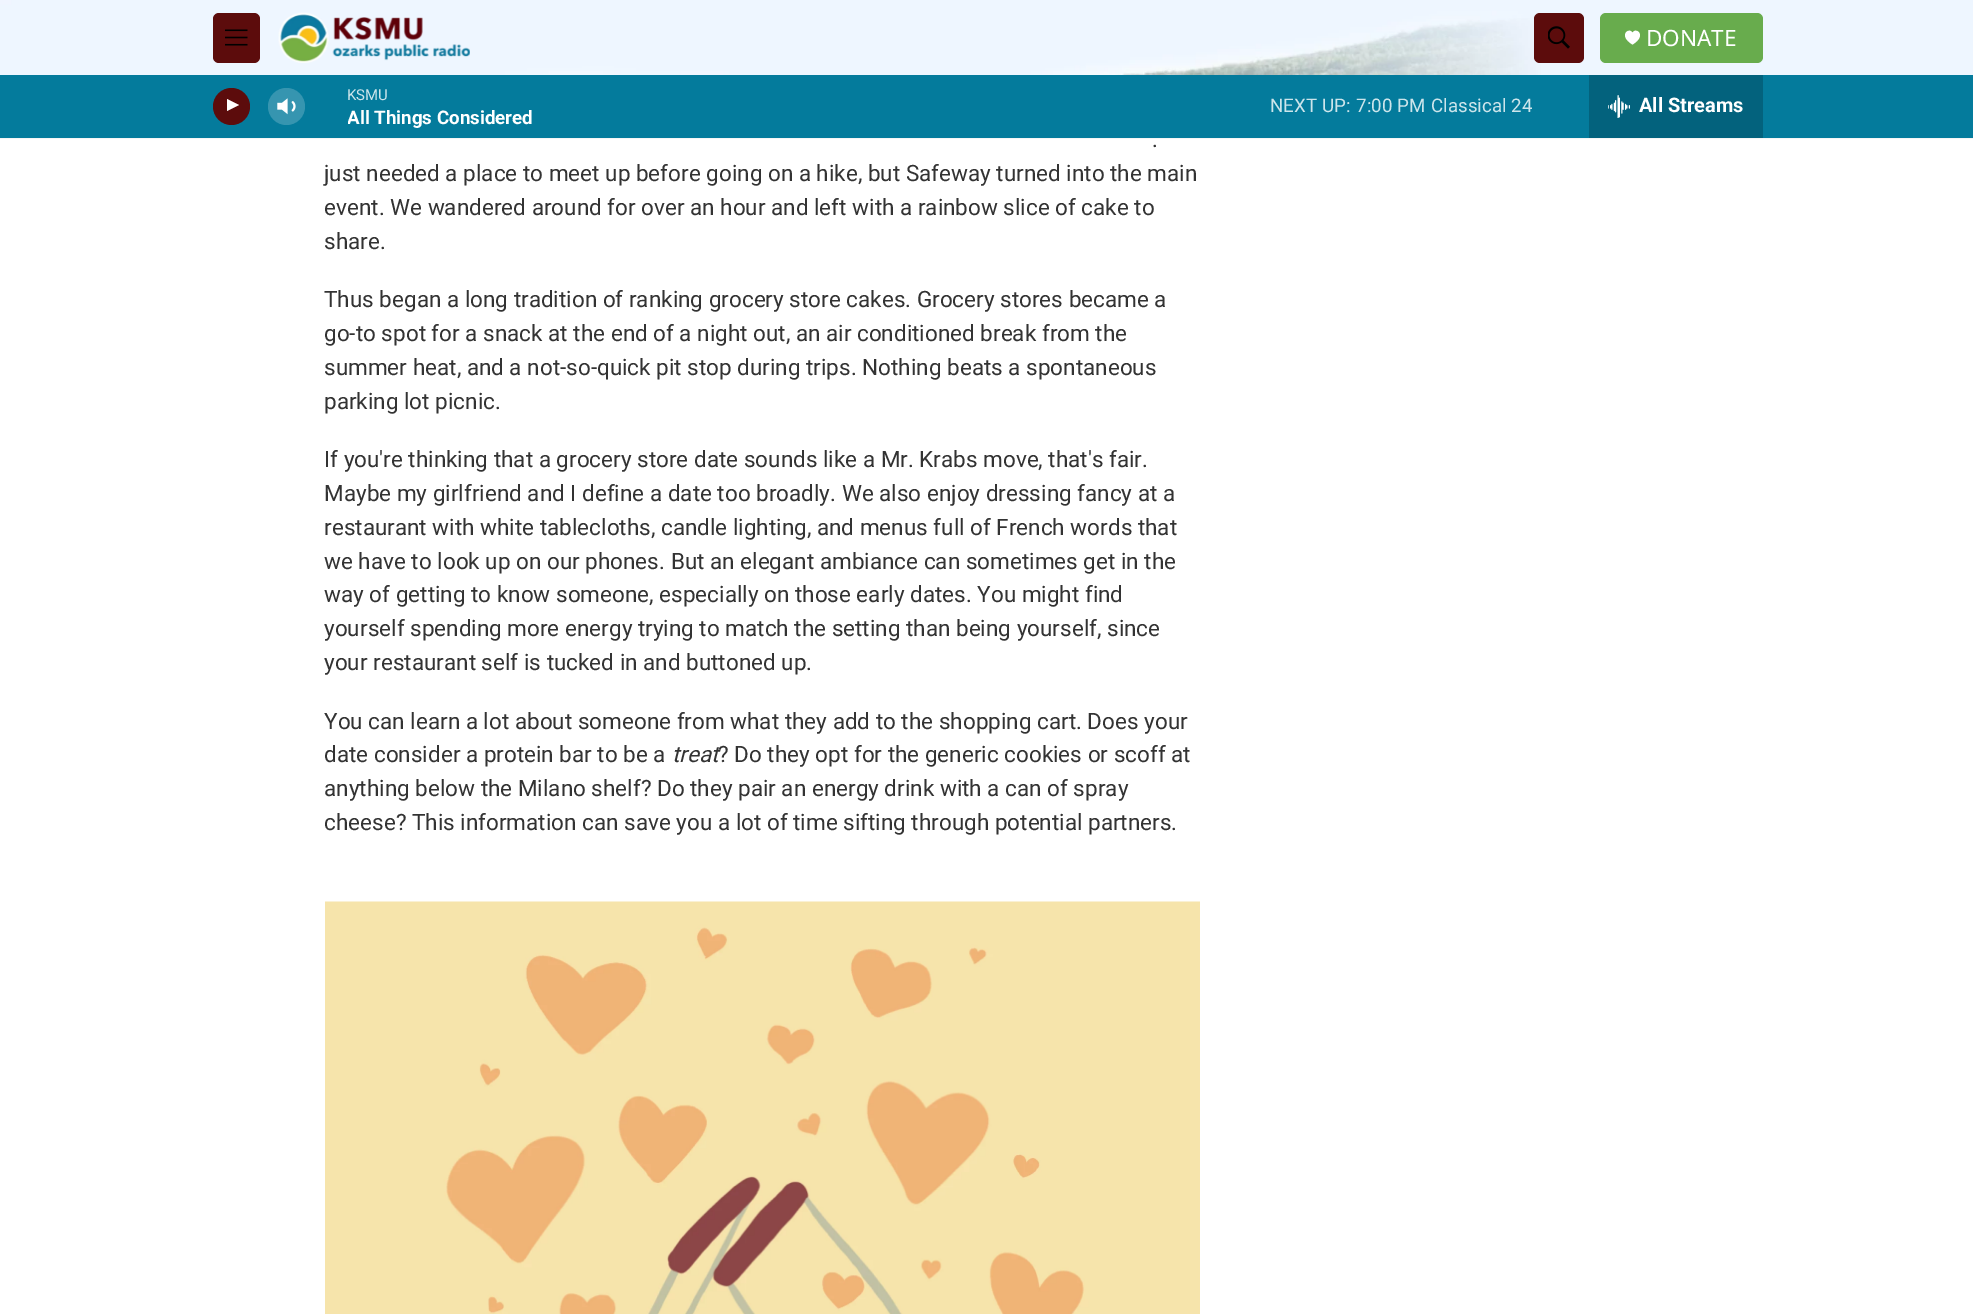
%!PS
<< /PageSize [1973 1314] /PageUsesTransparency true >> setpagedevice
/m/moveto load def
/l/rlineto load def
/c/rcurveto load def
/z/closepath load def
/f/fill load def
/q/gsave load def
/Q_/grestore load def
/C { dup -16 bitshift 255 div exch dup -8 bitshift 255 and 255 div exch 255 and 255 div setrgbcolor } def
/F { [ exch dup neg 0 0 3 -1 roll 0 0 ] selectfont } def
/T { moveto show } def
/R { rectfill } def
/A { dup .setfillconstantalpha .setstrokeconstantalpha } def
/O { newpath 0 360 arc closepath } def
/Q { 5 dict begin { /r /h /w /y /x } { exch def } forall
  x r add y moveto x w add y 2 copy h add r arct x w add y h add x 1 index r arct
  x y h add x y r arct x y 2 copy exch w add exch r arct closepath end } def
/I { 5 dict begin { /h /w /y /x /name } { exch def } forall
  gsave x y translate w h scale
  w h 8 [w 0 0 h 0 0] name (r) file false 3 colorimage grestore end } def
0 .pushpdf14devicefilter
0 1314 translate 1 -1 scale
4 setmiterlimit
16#FFFFFF C
0 0 1973 1314 R
16#F5F5F5 C
0 138 1973 1 R
(1.rgb) 0 0 1973 75 I
16#5C0C0C C
213 13 47 50 6 Q f
(2.rgb) 225 29 23 17 I
(3.rgb) 278 12 192 51 I
1534 13 50 50 6 Q f
(4.rgb) 1548 26 22 23 I
16#68AC4D C
1600 13 163 50 6 Q f
16#FFFFFF C
1632.5 33 m -2.5 -6.5 -15.5 2 0 11.5 c 15.5 -9.5 2.5 -18 0 -11.5 c z f
/NotoSans-Regular 22.5 F
(DONATE) 1646 46 T
16#047B9C C
0 75 1973 63 R
16#5C0C0C C
231.5 106.5 18.5 O f
16#FFFFFF C
227 99 m 12 6 l -12 6 l z f
(5.rgb) 277 98 19 17 I
0.2 A
286.5 106.5 18.5 O f
/Roboto-Regular 15 F
1 A
16#CDE5EB C
(KSMU) 347 100 T
q
348 106 185 23 rectclip
/Roboto-Bold 18.75 F
16#FFFFFF C
(All Things Considered) 347 124 T
Q_
/Roboto-Regular 18.75 F
(NEXT UP:) 1270 112 T
(7:00 PM) 1356 112 T
(Classical 24) 1431 112 T
16#03627D C
1589 75 174 63 R
(6.rgb) 1608 95 22 23 I
/Roboto-Bold 20 F
16#FFFFFF C
(All Streams) 1639 112 T
/Roboto-Regular 22.5 F
16#333333 C
(.) 1152 147 T
(just needed a place to meet up before going on a hike, but Safeway turned into the main) 324 181 T
(event. We wandered around for over an hour and left with a rainbow slice of cake to) 324 215 T
(share.) 324 249 T
(Thus began a long tradition of ranking grocery store cakes. Grocery stores became a) 324 307 T
(go-to spot for a snack at the end of a night out, an air conditioned break from the) 324 341 T
(summer heat, and a not-so-quick pit stop during trips. Nothing beats a spontaneous) 324 375 T
(parking lot picnic.) 324 409 T
(If you're thinking that a grocery store date sounds like a Mr. Krabs move, that's fair.) 324 467 T
(Maybe my girlfriend and I define a date too broadly. We also enjoy dressing fancy at a) 324 501 T
(restaurant with white tablecloths, candle lighting, and menus full of French words that) 324 535 T
(we have to look up on our phones. But an elegant ambiance can sometimes get in the) 324 569 T
(way of getting to know someone, especially on those early dates. You might find) 324 602 T
(yourself spending more energy trying to match the setting than being yourself, since) 324 636 T
(your restaurant self is tucked in and buttoned up.) 324 670 T
(You can learn a lot about someone from what they add to the shopping cart. Does your) 324 729 T
(date consider a protein bar to be a) 324 762 T
/Roboto-Italic 22.5 F
(treat) 672 762 T
/Roboto-Regular 22.5 F
(? Do they opt for the generic cookies or scoff at) 718 762 T
(anything below the Milano shelf? Do they pair an energy drink with a can of spray) 324 796 T
(cheese? This information can save you a lot of time sifting through potential partners.) 324 830 T
(7.rgb) 325 901 875 413 I
.poppdf14devicefilter showpage
